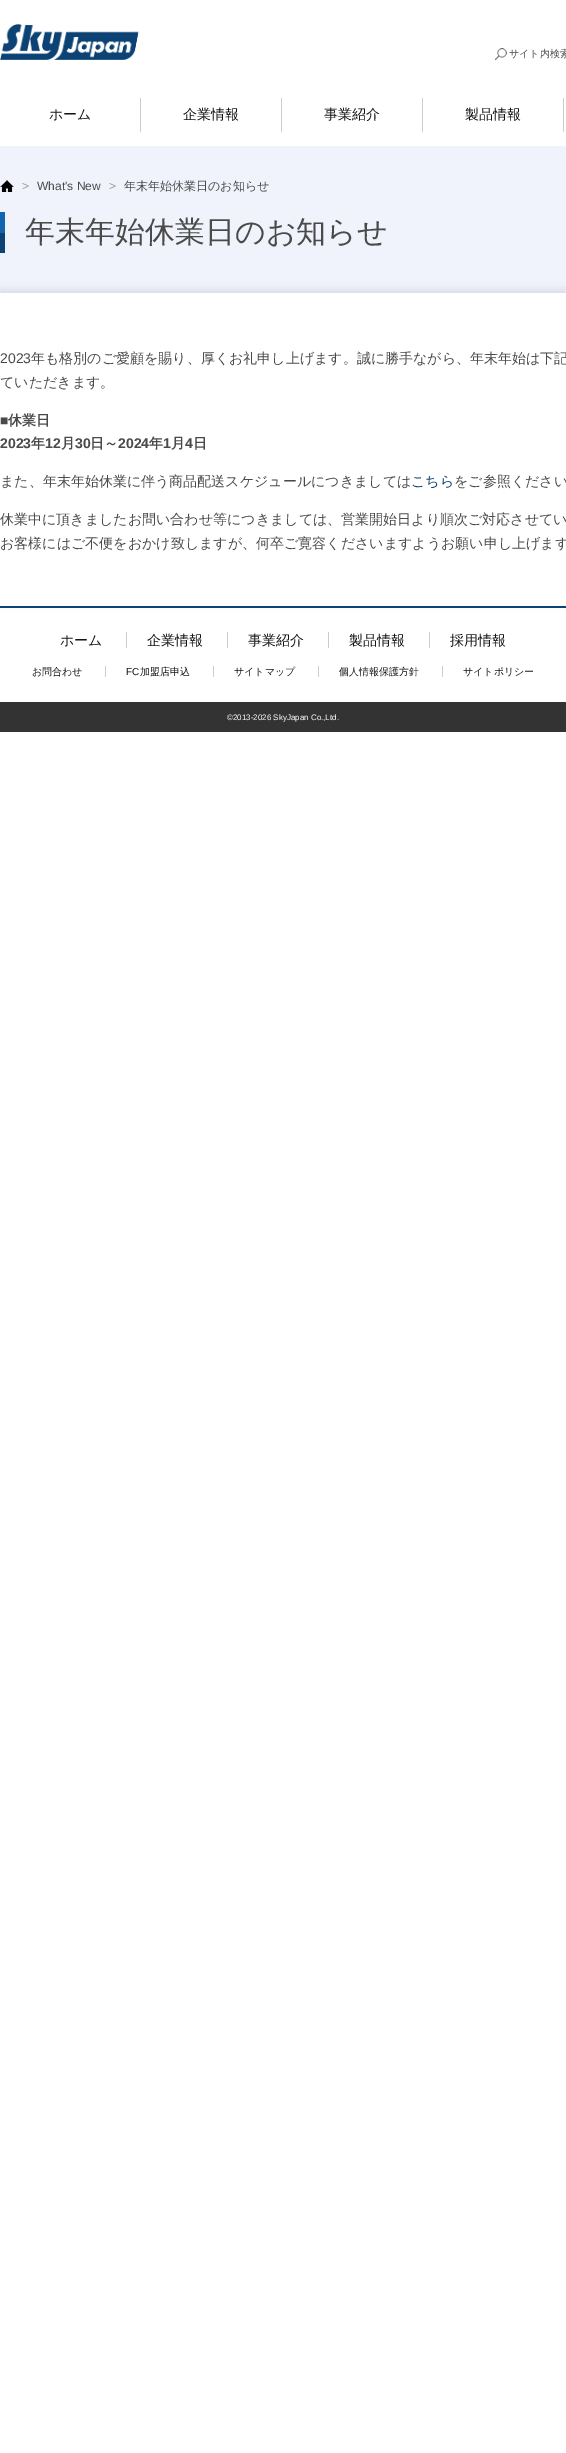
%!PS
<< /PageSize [566 2453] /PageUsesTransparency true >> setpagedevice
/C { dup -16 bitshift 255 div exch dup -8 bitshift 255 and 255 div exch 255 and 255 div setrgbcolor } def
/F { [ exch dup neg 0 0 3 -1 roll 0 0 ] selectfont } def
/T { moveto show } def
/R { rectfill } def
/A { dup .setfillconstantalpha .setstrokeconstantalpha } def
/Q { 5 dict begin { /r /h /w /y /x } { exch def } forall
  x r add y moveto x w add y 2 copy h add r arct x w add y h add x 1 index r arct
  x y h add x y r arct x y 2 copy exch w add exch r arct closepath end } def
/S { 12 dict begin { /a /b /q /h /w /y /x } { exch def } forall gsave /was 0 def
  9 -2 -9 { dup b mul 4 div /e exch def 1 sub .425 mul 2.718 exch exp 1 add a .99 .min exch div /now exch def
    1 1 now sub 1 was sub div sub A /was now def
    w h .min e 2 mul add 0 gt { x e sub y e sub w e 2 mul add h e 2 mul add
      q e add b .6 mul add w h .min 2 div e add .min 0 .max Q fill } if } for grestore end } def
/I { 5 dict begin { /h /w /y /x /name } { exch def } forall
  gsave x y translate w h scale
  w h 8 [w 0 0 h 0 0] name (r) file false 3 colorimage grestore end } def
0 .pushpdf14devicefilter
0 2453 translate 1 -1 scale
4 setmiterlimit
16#FFFFFF C
0 0 566 2453 R
(1.rgb) 0 24 139 36 I
(2.rgb) 495 48 12 12 I
/WenQuanYiZenHei-Medium 10 F
16#4A4A4A C
(サイト内検索) 509 57 T
/WenQuanYiZenHei-Medium 14 F
16#141414 C
(ホーム) 49 119 T
16#CCCCCC C
140 98 1 34 R
16#141414 C
(企業情報) 183 119 T
16#CCCCCC C
281 98 1 34 R
16#141414 C
(事業紹介) 324 119 T
16#CCCCCC C
422 98 1 34 R
16#141414 C
(製品情報) 465 119 T
16#CCCCCC C
563 98 1 34 R
16#F0F3FB C
0 146 566 147 R
(3.rgb) 0 180 14 12 I
/LiberationSans-Regular 12 F
16#999999 C
(>) 22 190 T
16#4A4A4A C
(What's New) 37 190 T
16#999999 C
(>) 109 190 T
/WenQuanYiZenHei-Medium 12 F
16#4A4A4A C
(年末年始休業日のお知らせ) 124 190 T
16#1264AE C
0 212 5 21 R
16#0C4374 C
0 233 5 20 R
/WenQuanYiZenHei-Medium 30 F
16#4A4A4A C
(年末年始休業日のお知らせ) 25 242 T
16#000000 C
0 290 566 313 0 4 .1 S
16#FFFFFF C
0 293 566 313 R
/LiberationSans-Regular 14 F
16#4A4A4A C
(2023) 0 363 T
/WenQuanYiZenHei-Medium 14 F
(年も格別のご愛顧を賜り、厚くお礼申し上げます。誠に勝手ながら、年末年始は下記) 31 363 T
(ていただきます。) 0 387 T
/LiberationSans-Bold 14 F
(■) 0 425 T
/WenQuanYiZenHei-Bold 14 F
(休業日) 8 425 T
/LiberationSans-Bold 14 F
(2023) 0 448 T
/WenQuanYiZenHei-Bold 14 F
(年) 31 448 T
/LiberationSans-Bold 14 F
(12) 45 448 T
/WenQuanYiZenHei-Bold 14 F
(月) 61 448 T
/LiberationSans-Bold 14 F
(30) 75 448 T
/WenQuanYiZenHei-Bold 14 F
(日～) 90 448 T
/LiberationSans-Bold 14 F
(2024) 118 448 T
/WenQuanYiZenHei-Bold 14 F
(年) 149 448 T
/LiberationSans-Bold 14 F
(1) 163 448 T
/WenQuanYiZenHei-Bold 14 F
(月) 171 448 T
/LiberationSans-Bold 14 F
(4) 185 448 T
/WenQuanYiZenHei-Bold 14 F
(日) 193 448 T
/WenQuanYiZenHei-Medium 14 F
(また、年末年始休業に伴う商品配送スケジュールにつきましては) 0 486 T
16#0C4374 C
(こちら) 411 486 T
16#4A4A4A C
(をご参照ください) 454 486 T
(休業中に頂きましたお問い合わせ等につきましては、営業開始日より順次ご対応させてい) 0 524 T
(お客様にはご不便をおかけ致しますが、何卒ご寛容くださいますようお願い申し上げます) 0 548 T
16#0C4374 C
0 606 566 2 R
16#141414 C
(ホーム) 60 645 T
(企業情報) 147 645 T
16#CCCCCC C
126 632 1 16 R
16#141414 C
(事業紹介) 248 645 T
16#CCCCCC C
227 632 1 16 R
16#141414 C
(製品情報) 349 645 T
16#CCCCCC C
328 632 1 16 R
16#141414 C
(採用情報) 450 645 T
16#CCCCCC C
429 632 1 16 R
/WenQuanYiZenHei-Medium 10 F
16#141414 C
(お問合わせ) 32 675 T
/LiberationSans-Regular 10 F
(FC) 126 675 T
16#CCCCCC C
105 666 1 11 R
/WenQuanYiZenHei-Medium 10 F
16#141414 C
(加盟店申込) 140 675 T
(サイトマップ) 234 675 T
16#CCCCCC C
213 666 1 11 R
16#141414 C
(個人情報保護方針) 339 675 T
16#CCCCCC C
318 666 1 11 R
16#141414 C
(サイトポリシー) 463 675 T
16#CCCCCC C
442 666 1 11 R
16#333333 C
0 702 566 30 R
/LiberationSans-Regular 8 F
16#FFFFFF C
(©2013-2026 SkyJapan Co.,Ltd.) 227 720 T
.poppdf14devicefilter showpage
